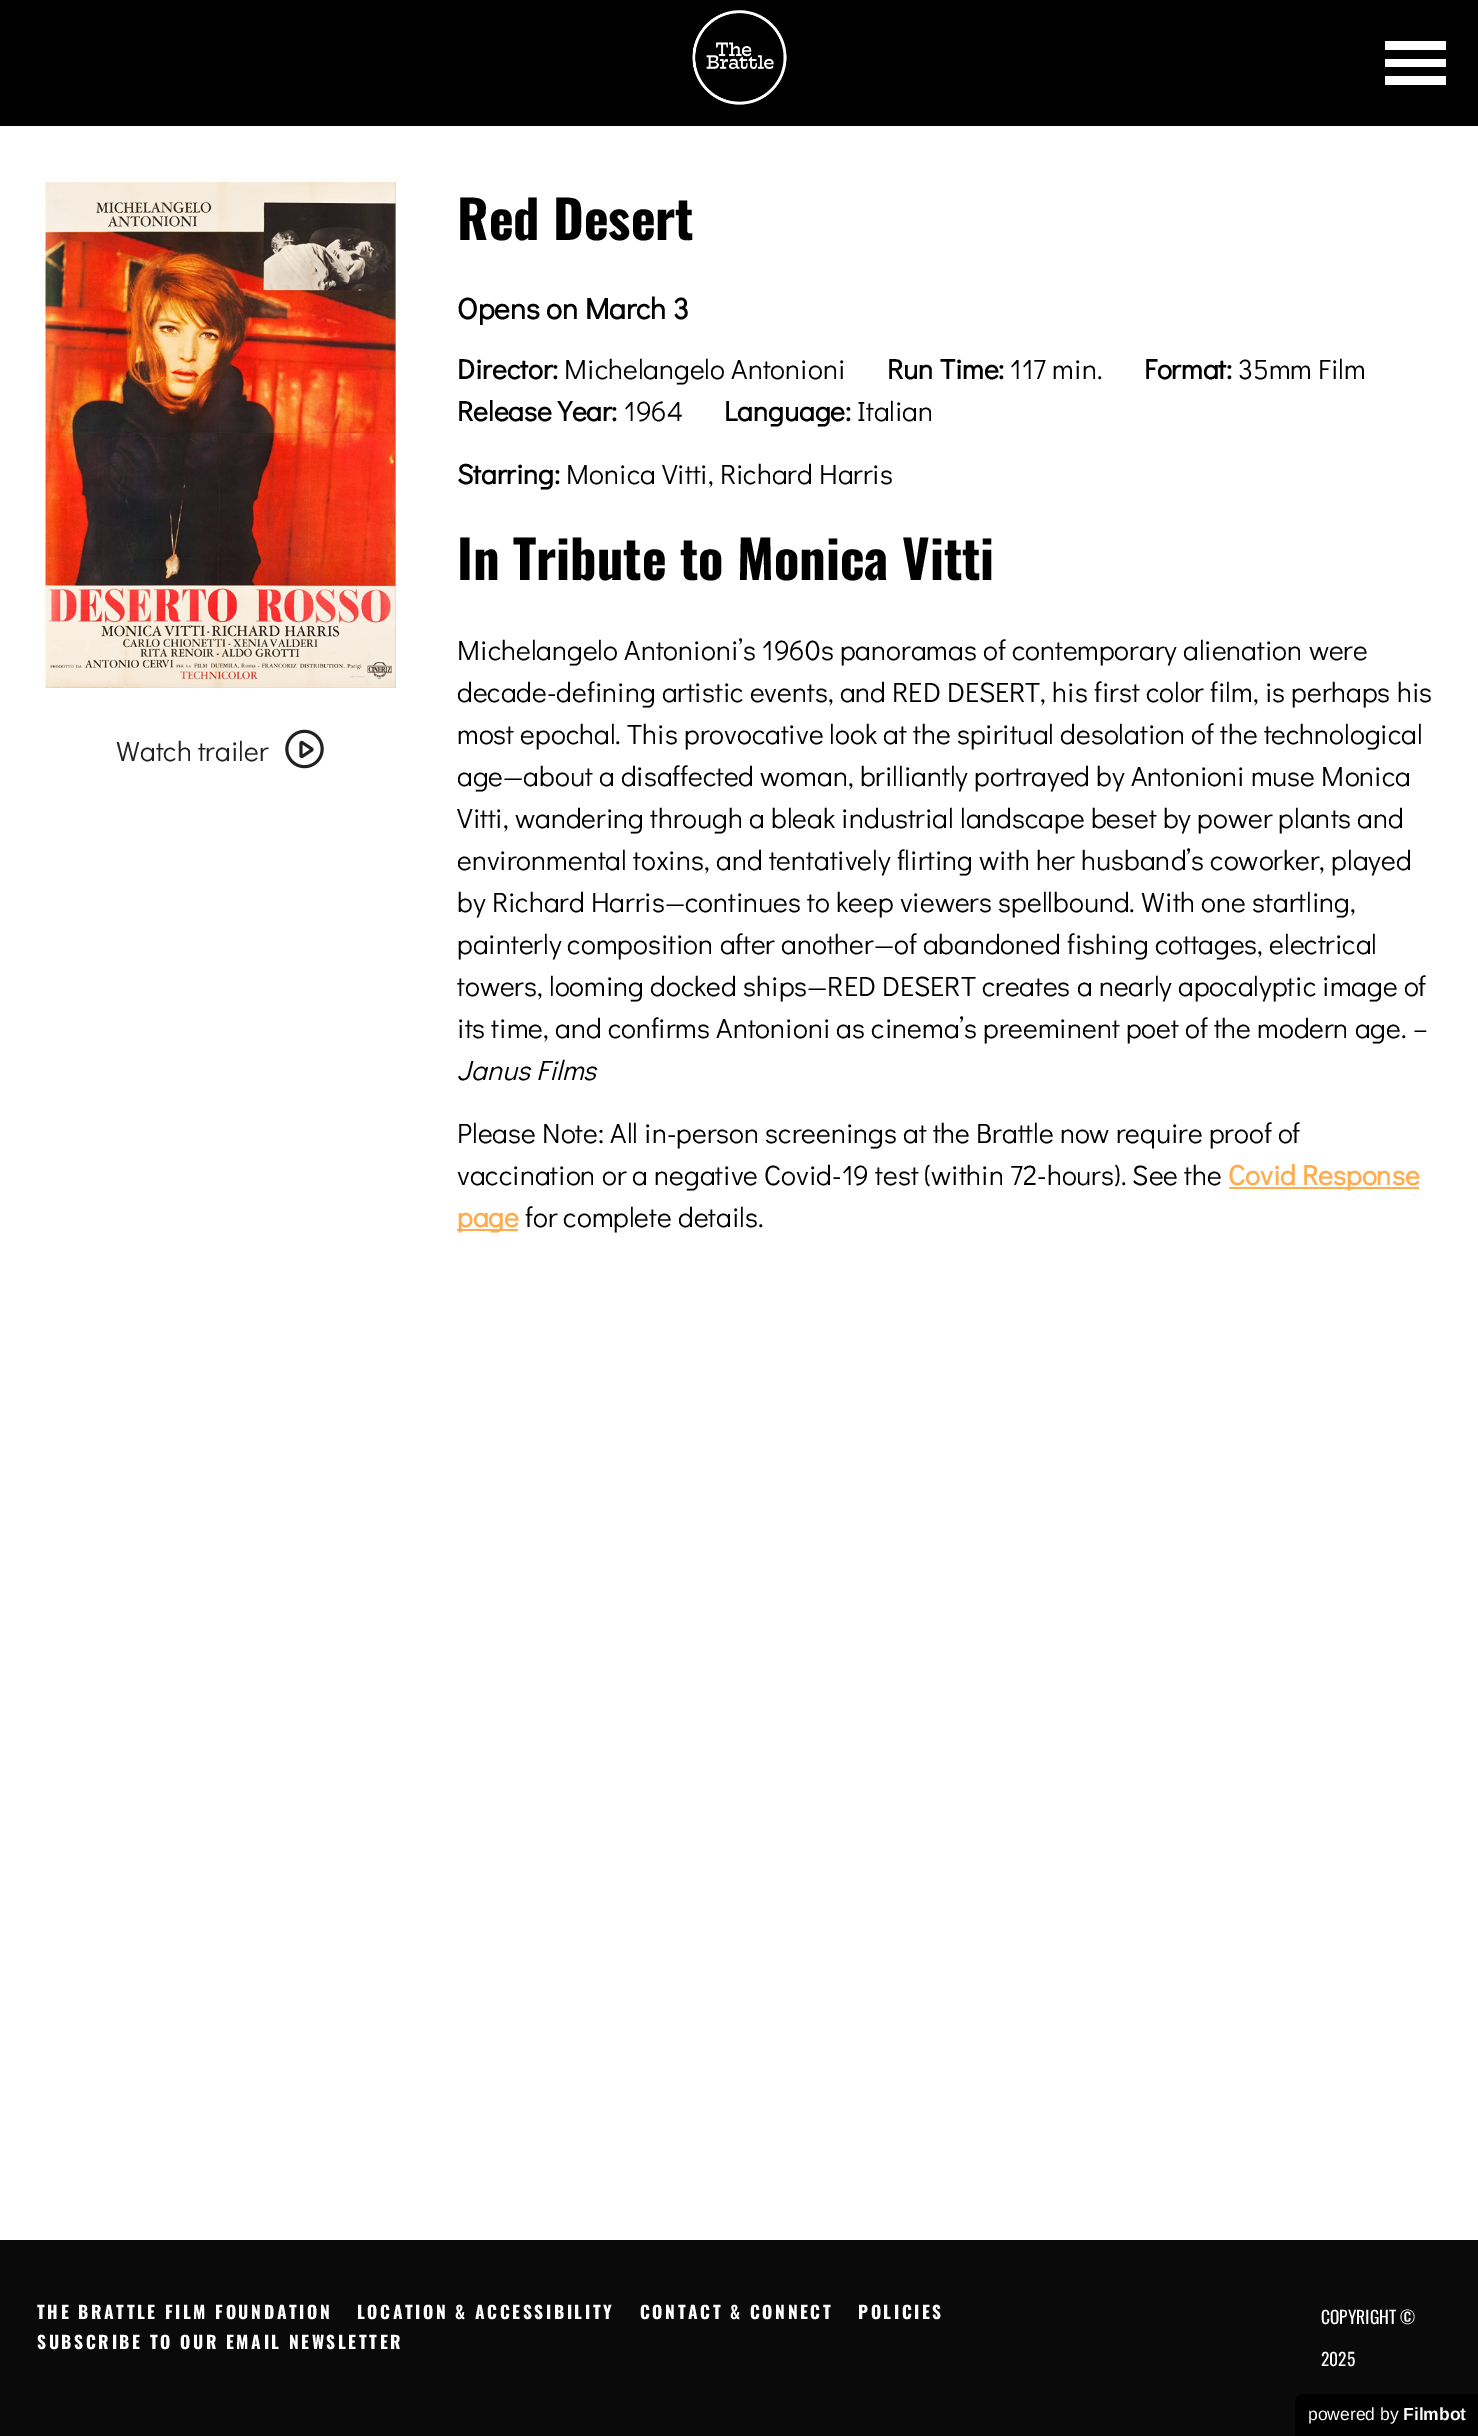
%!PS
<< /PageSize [1478 2436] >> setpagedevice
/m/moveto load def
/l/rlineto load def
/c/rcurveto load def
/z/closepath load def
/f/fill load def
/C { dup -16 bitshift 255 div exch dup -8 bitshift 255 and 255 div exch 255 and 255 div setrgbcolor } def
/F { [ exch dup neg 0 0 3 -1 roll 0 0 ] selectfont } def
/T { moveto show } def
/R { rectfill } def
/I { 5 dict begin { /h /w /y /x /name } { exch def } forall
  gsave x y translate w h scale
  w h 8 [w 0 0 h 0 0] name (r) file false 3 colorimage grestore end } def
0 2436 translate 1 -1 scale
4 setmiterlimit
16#FFFFFF C
0 0 1478 2436 R
16#000000 C
0 0 1478 126 R
(1.rgb) 692 10 95 95 I
16#FFFFFF C
1385 41 m 0 9 l 61 0 l 0 -9 l z 1385 59 m 0 8 l 61 0 l 0 -8 l z 1385 76 m 0 9 l 61 0 l 0 -9 l z f
16#CCCCCC C
46 182 350 506 R
(2.rgb) 45 182 351 506 I
/DidactGothic-Regular 28 F
16#231F20 C
(Watch trailer) 116 761 T
(3.rgb) 285 729 39 40 I
/Oswald-Bold 52.5 F
16#000000 C
(Red Desert) 457 240 T
/DidactGothic-Bold 29.75 F
(Opens on March 3) 457 319 T
/DidactGothic-Bold 28 F
(Director:) 457 379 T
/DidactGothic-Regular 28 F
(Michelangelo Antonioni) 564 379 T
/DidactGothic-Bold 28 F
(Run Time:) 887 379 T
/DidactGothic-Regular 28 F
(117 min.) 1010 379 T
/DidactGothic-Bold 28 F
(Format:) 1144 379 T
/DidactGothic-Regular 28 F
(35mm Film) 1238 379 T
/DidactGothic-Bold 28 F
(Release Year:) 457 421 T
/DidactGothic-Regular 28 F
(1964) 624 421 T
/DidactGothic-Bold 28 F
(Language:) 724 421 T
/DidactGothic-Regular 28 F
(Italian) 857 421 T
/DidactGothic-Bold 28 F
(Starring:) 457 484 T
/DidactGothic-Regular 28 F
(Monica Vitti, Richard Harris) 566 484 T
/Oswald-Bold 52.5 F
(In Tribute to Monica Vitti) 457 580 T
/DidactGothic-Regular 28 F
(Michelangelo Antonioni’s 1960s panoramas of contemporary alienation were) 457 660 T
(decade-defining artistic events, and RED DESERT, his first color film, is perhaps his) 457 702 T
(most epochal. This provocative look at the spiritual desolation of the technological) 457 744 T
(age—about a disaffected woman, brilliantly portrayed by Antonioni muse Monica) 457 786 T
(Vitti, wandering through a bleak industrial landscape beset by power plants and) 457 828 T
(environmental toxins, and tentatively flirting with her husband’s coworker, played) 457 870 T
(by Richard Harris—continues to keep viewers spellbound. With one startling,) 457 912 T
(painterly composition after another—of abandoned fishing cottages, electrical) 457 954 T
(towers, looming docked ships—RED DESERT creates a nearly apocalyptic image of) 457 996 T
(its time, and confirms Antonioni as cinema’s preeminent poet of the modern age. –) 457 1038 T
/DidactGothic-Italic 28 F
(Janus Films) 457 1080 T
/DidactGothic-Regular 28 F
(Please Note: All in-person screenings at the Brattle now require proof of) 457 1143 T
(vaccination or a negative Covid-19 test \(within 72-hours\). See the) 457 1185 T
16#FFAC4D C
1229 1187 190 2 R
/DidactGothic-Bold 28 F
(Covid Response) 1228 1185 T
457 1229 61 2 R
(page) 457 1227 T
/DidactGothic-Regular 28 F
16#000000 C
(for complete details.) 525 1227 T
16#0A0A0A C
0 2240 1478 196 R
/Oswald-Bold 17.5 F
16#FFFFFF C
37 2319 m 2.6 0 (THE BRATTLE FILM FOUNDATION) ashow
357 2319 m 2.6 0 (LOCATION & ACCESSIBILITY) ashow
640 2319 m 2.6 0 (CONTACT & CONNECT) ashow
858 2319 m 2.6 0 (POLICIES) ashow
37 2349 m 2.6 0 (SUBSCRIBE TO OUR EMAIL NEWSLETTER) ashow
/Oswald-Regular 17.5 F
(COPYRIGHT ©) 1321 2324 T
(2025) 1321 2366 T
16#000000 C
1304 2394 m 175 0 l 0 42 l -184 0 l 0 -33 l 0 -5 4 -9 9 -9 c z f
/LiberationSans-Regular 17.5 F
16#FFFFFF C
(powered by) 1308 2420 T
/LiberationSans-Bold 17.5 F
(Filmbot) 1403 2420 T
showpage
